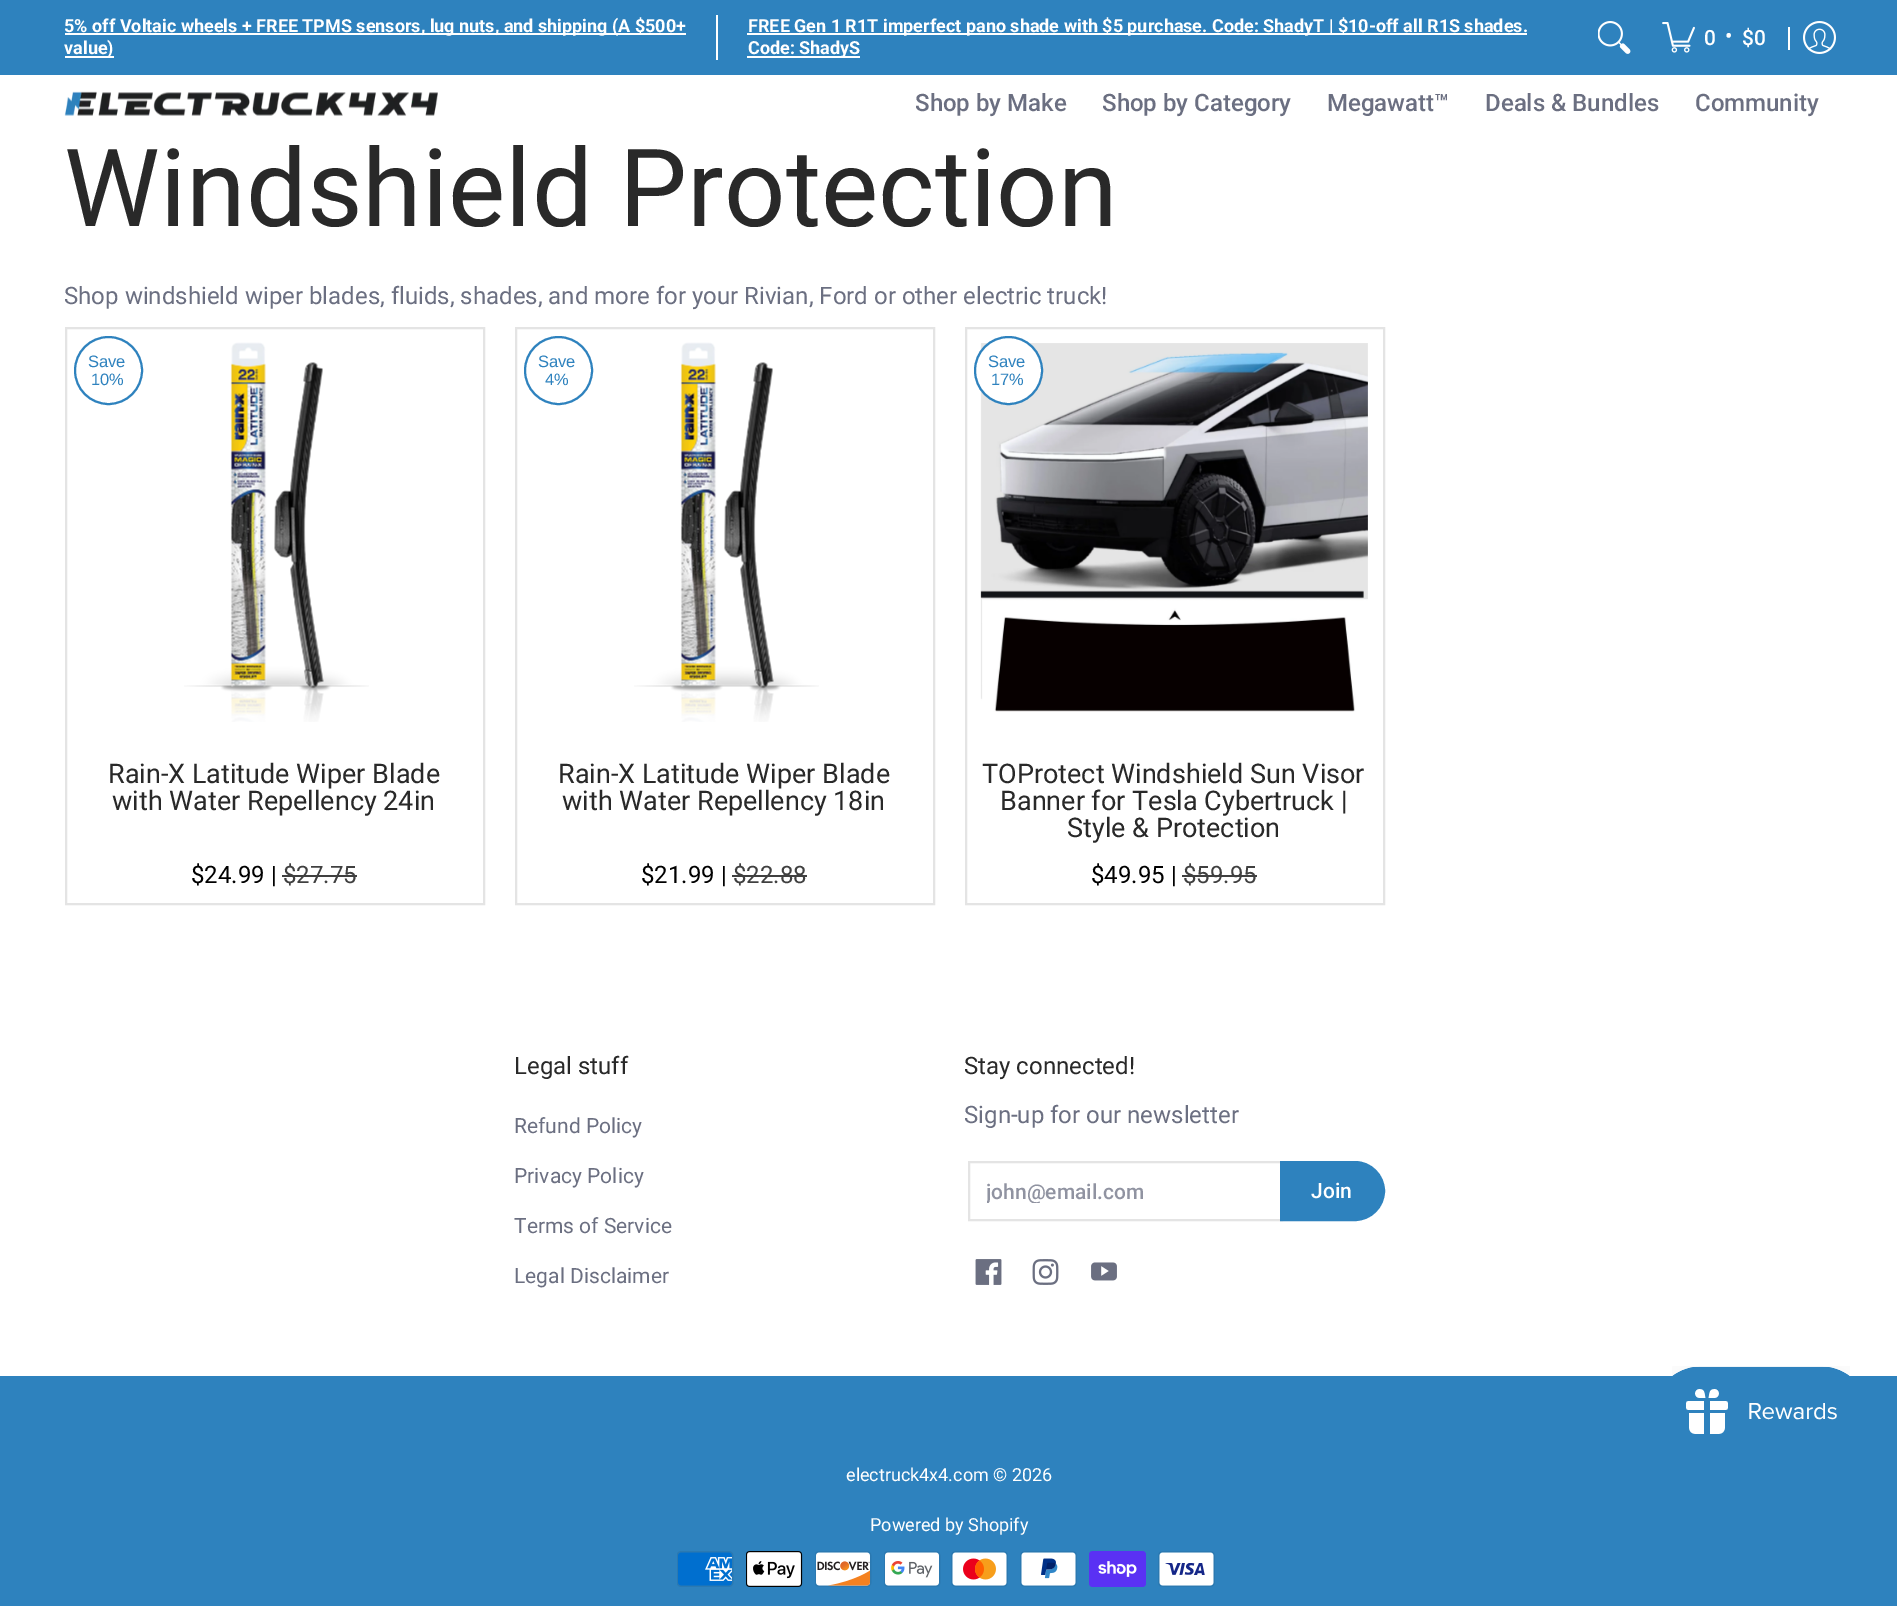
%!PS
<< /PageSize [1897 1606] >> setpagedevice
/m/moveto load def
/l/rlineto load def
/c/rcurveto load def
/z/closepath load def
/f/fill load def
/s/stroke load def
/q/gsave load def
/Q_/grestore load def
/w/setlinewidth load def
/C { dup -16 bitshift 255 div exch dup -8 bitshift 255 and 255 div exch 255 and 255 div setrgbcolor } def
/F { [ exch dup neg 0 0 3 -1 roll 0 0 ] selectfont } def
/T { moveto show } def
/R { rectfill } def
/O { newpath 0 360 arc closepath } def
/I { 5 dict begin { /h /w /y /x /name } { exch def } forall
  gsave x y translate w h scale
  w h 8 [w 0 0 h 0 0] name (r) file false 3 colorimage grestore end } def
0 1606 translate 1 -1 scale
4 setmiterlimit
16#FFFFFF C
0 0 1897 1606 R
16#2E82BE C
0 0 1897 75 R
16#FFFFFF C
65 33 621 2 R
/Roboto-Bold 18 F
(5% off Voltaic wheels + FREE TPMS sensors, lug nuts, and shipping \(A $500+) 64 32 T
65 56 49 2 R
(value\)) 64 54 T
716 15 2 45 R
747 33 780 2 R
(FREE Gen 1 R1T imperfect pano shade with $5 purchase. Code: ShadyT | $10-off all R1S shades.) 748 32 T
747 56 113 2 R
(Code: ShadyS) 748 54 T
(1.rgb) 1598 21 33 33 I
(2.rgb) 1662 22 33 31 I
/Roboto-Medium 21 F
(0) 1704 45 T
(•) 1725 43 T
($0) 1742 45 T
1788 27 2 23 R
(3.rgb) 1803 21 33 33 I
(4.rgb) 64 91 374 25 I
/Roboto-Medium 24 F
16#6B6F81 C
(Shop by Make) 915 111 T
(Shop by Category) 1102 111 T
(Megawatt™) 1327 111 T
(Deals & Bundles) 1485 111 T
(Community) 1695 111 T
/Roboto-Regular 108 F
16#292929 C
(Windshield Protection) 64 226 T
/Roboto-Regular 24 F
16#6B6F81 C
(Shop windshield wiper blades, fluids, shades, and more for your Rivian, Ford or other electric truck!) 64 304 T
16#E4E4E4 C
2 w
66 328 418 576 rectstroke
16#2E82BE C
108.5 370.5 33.5 O s
/LiberationSans-Regular 16.5 F
(Save) 88 367 T
(10%) 91 385 T
(5.rgb) 184 342 185 380 I
/Roboto-Regular 27 F
16#292929 C
(Rain-X Latitude Wiper Blade) 108 783 T
(with Water Repellency 24in) 112 810 T
/Roboto-Regular 24 F
16#000000 C
($24.99 |) 191 883 T
16#404040 C
($27.75) 283 883 T
282 875 75 2 R
16#E4E4E4 C
516 328 418 576 rectstroke
16#2E82BE C
558.5 370.5 33.5 O s
/LiberationSans-Regular 16.5 F
(Save) 538 367 T
(4%) 545 385 T
(5.rgb) 634 342 185 380 I
/Roboto-Regular 27 F
16#292929 C
(Rain-X Latitude Wiper Blade) 558 783 T
(with Water Repellency 18in) 562 810 T
/Roboto-Regular 24 F
16#000000 C
($21.99 |) 641 883 T
16#404040 C
($22.88) 733 883 T
732 875 75 2 R
16#E4E4E4 C
966 328 418 576 rectstroke
(6.rgb) 980 343 388 369 I
16#FFFFFF C
1008.5 370.5 33.5 O q f Q_
16#2E82BE C
s
/LiberationSans-Regular 16.5 F
(Save) 988 367 T
(17%) 991 385 T
/Roboto-Regular 27 F
16#292929 C
(TOProtect Windshield Sun Visor) 982 783 T
(Banner for Tesla Cybertruck |) 1000 810 T
(Style & Protection) 1067 837 T
/Roboto-Regular 24 F
16#000000 C
($49.95 |) 1091 883 T
16#404040 C
($59.95) 1183 883 T
1182 875 75 2 R
16#292929 C
(Legal stuff) 514 1074 T
/Roboto-Regular 21 F
16#6B6F81 C
(Refund Policy) 514 1133 T
(Privacy Policy) 514 1183 T
(Terms of Service) 514 1233 T
(Legal Disclaimer) 514 1283 T
/Roboto-Regular 24 F
16#292929 C
(Stay connected!) 964 1074 T
16#6B6F81 C
(Sign-up for our newsletter) 964 1123 T
16#E4E4E4 C
969 1162 313 58 rectstroke
q
987 1179 276 24 rectclip
/Roboto-Medium 21 F
16#9093A1 C
(john@email.com) 986 1199 T
Q_
16#2E82BE C
1281.5 1162.5 m 73.5 0 l 15.5 0 28.5 13 28.5 28.5 c 0 15.5 -13 28.5 -28.5 28.5 c -73.5 0 l z q f Q_
3 w
s
/Roboto-Medium 21 F
16#FFFFFF C
(Join) 1311 1198 T
(7.rgb) 975 1259 27 26 I
(8.rgb) 1032 1259 27 26 I
(9.rgb) 1091 1262 26 19 I
16#2E82BE C
0 1376 1897 230 R
/Roboto-Regular 18 F
16#FFFFFF C
(electruck4x4.com © 2026) 846 1481 T
(Powered by Shopify) 870 1531 T
(10.rgb) 677 1551 57 36 I
(11.rgb) 746 1551 57 36 I
(12.rgb) 815 1551 57 36 I
(13.rgb) 884 1551 57 36 I
(14.rgb) 951 1551 57 36 I
(15.rgb) 1020 1551 57 36 I
(16.rgb) 1089 1551 57 36 I
(17.rgb) 1158 1551 57 36 I
(18.rgb) 1672 1366 178 68 I
showpage
